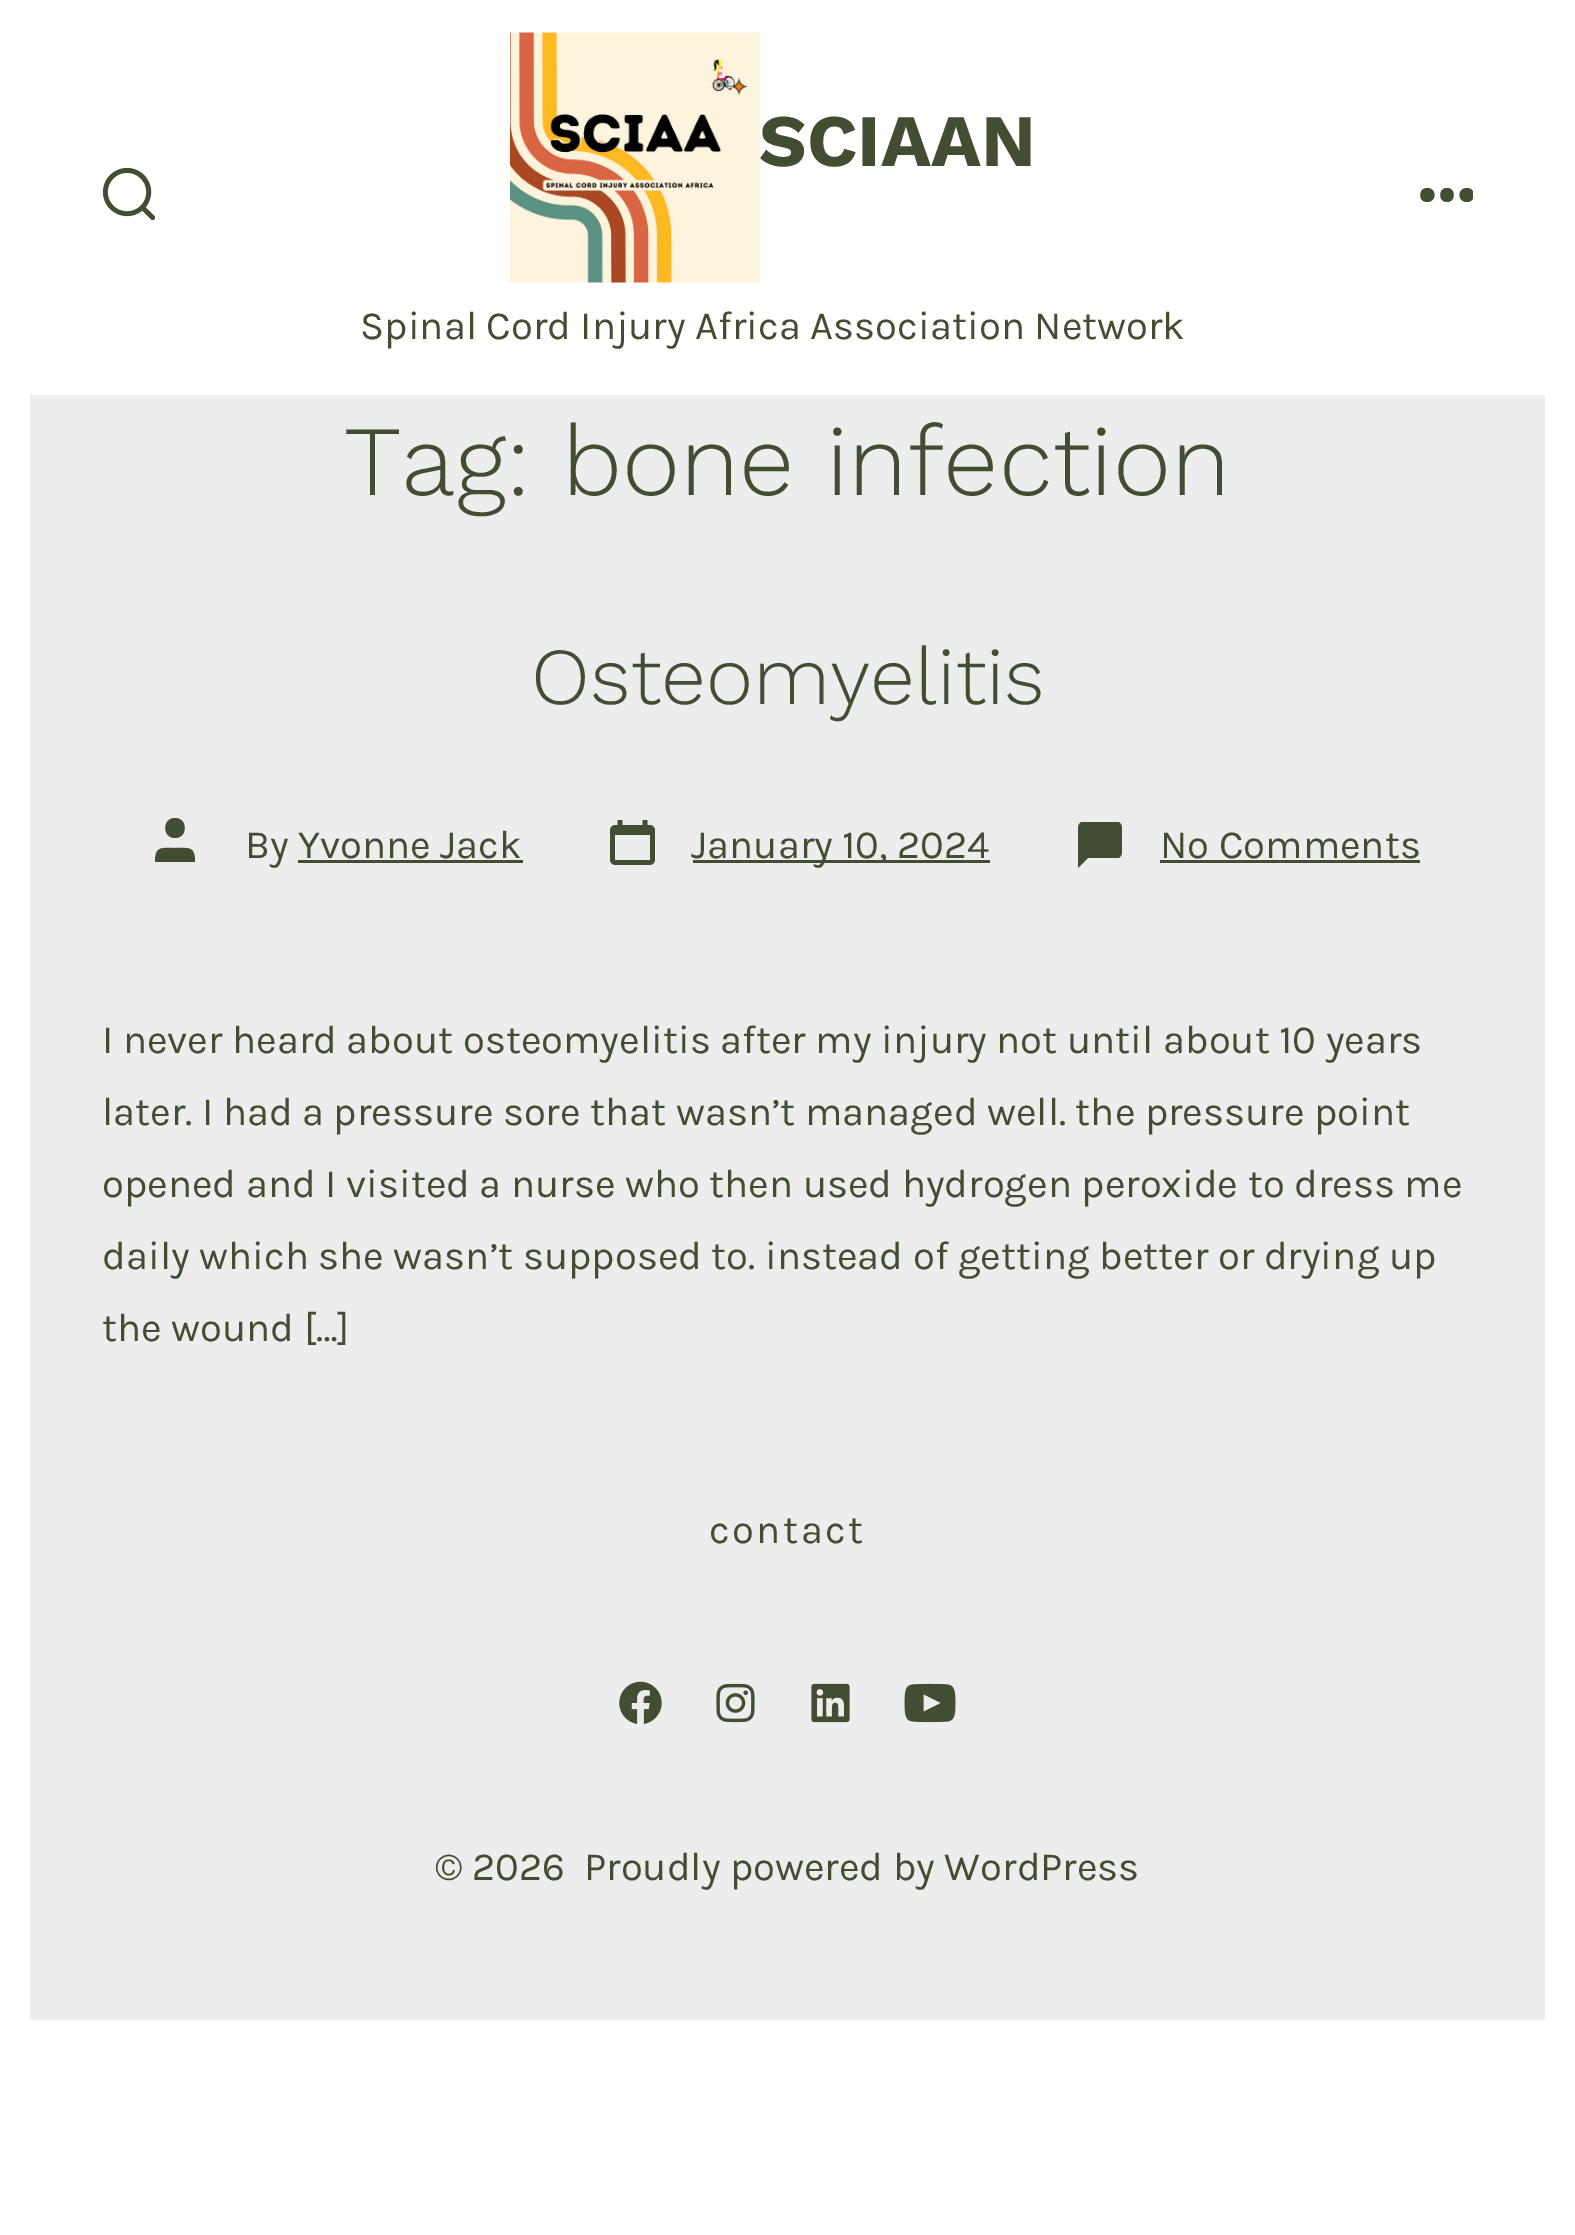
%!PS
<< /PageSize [1575 2235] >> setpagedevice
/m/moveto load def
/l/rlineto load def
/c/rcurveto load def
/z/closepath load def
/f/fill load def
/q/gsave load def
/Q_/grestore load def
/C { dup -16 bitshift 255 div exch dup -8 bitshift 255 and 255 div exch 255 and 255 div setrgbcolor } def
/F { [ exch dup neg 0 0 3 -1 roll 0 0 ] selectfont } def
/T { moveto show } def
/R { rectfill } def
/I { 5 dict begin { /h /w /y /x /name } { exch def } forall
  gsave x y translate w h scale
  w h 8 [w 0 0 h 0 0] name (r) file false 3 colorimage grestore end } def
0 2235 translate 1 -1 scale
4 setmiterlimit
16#FFFFFF C
0 0 1575 2235 R
16#EDEDED C
30 395 1515 1625 R
(1.rgb) 103 168 52 52 I
(2.rgb) 510 32 250 251 I
/WorkSans-Bold 74 F
16#434D32 C
(SCIAAN) 759 166 T
/Karla-Regular 40 F
(Spinal Cord Injury Africa Association Network) 360 339 T
q
1420 168 53 52 rectclip
1427 202 m -9 0 -9 -14 0 -14 c 10 0 10 14 0 14 c z 1447 202 m -9 0 -9 -14 0 -14 c 9 0 9 14 0 14 c z 1467 202 m -10 0 -10 -14 0 -14 c 9 0 9 14 0 14 c z f
Q_
/WorkSans-Light 99.25 F
(Tag: bone infection) 344 495 T
/WorkSans-Light 80.5 F
(Osteomyelitis) 531 704 T
195 862 m -40 0 l 0 -16 6 -14 20 -14 c 14 0 20 -2 20 14 c z 175 838 m -13 0 -13 -20 0 -20 c 13 0 13 20 0 20 c z f
/Karla-Regular 40 F
(By Yvonne Jack) 245 858 T
298 860 225 3 R
(3.rgb) 610 820 45 45 I
693 860 297 3 R
(January 10, 2024) 691 858 T
1122 852 m 0 3 -2 6 -4 6 c -30 0 l -10 10 l 0 -40 l 0 -3 2 -6 4 -6 c 36 0 l 2 0 4 3 4 6 c z f
(No Comments) 1160 858 T
1160 860 260 3 R
(I never heard about osteomyelitis after my injury not until about 10 years) 102 1053 T
(later. I had a pressure sore that wasn’t managed well. the pressure point) 102 1125 T
(opened and I visited a nurse who then used hydrogen peroxide to dress me) 102 1197 T
(daily which she wasn’t supposed to. instead of getting better or drying up) 102 1269 T
(the wound […]) 102 1341 T
709 1543 m 2.5 0 (contact) ashow
(4.rgb) 619 1681 43 43 I
(5.rgb) 716 1683 39 40 I
(6.rgb) 811 1683 39 40 I
(7.rgb) 904 1683 52 40 I
(© 2026) 435 1880 T
(Proudly powered by WordPress) 584 1880 T
showpage
